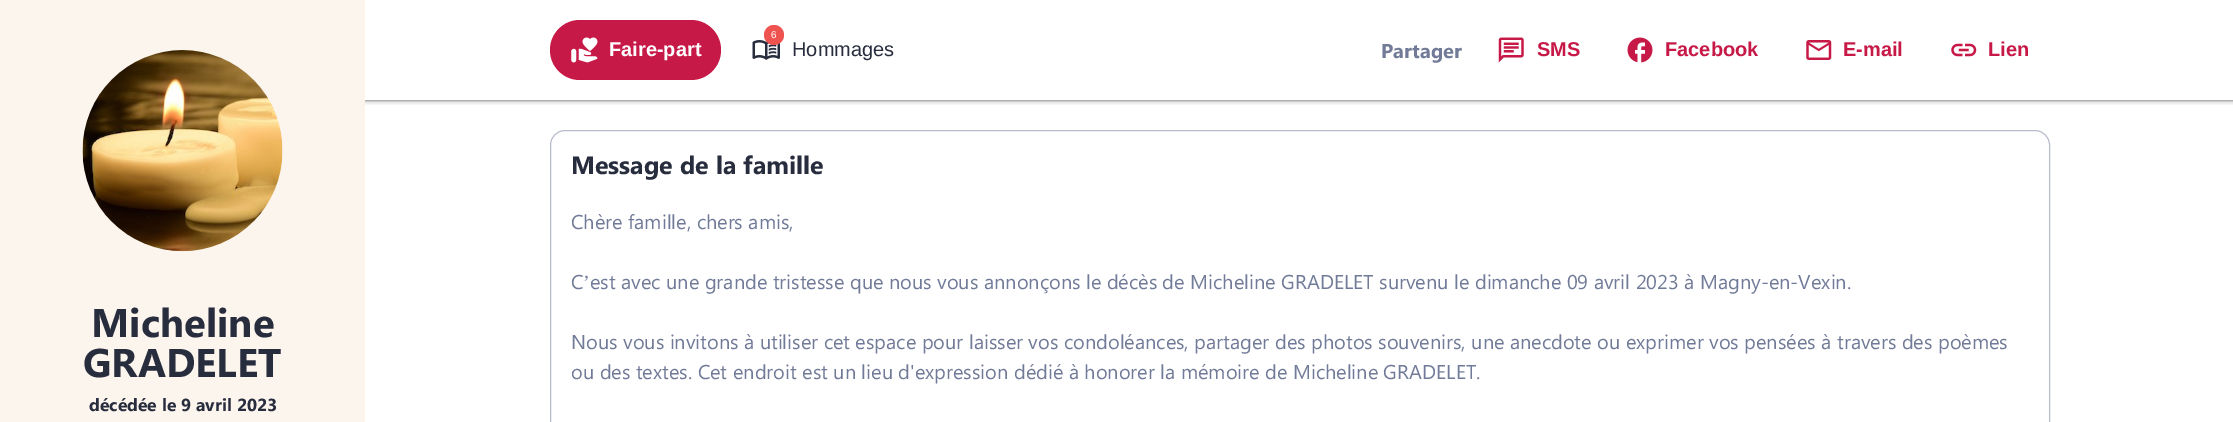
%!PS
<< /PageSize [2233 422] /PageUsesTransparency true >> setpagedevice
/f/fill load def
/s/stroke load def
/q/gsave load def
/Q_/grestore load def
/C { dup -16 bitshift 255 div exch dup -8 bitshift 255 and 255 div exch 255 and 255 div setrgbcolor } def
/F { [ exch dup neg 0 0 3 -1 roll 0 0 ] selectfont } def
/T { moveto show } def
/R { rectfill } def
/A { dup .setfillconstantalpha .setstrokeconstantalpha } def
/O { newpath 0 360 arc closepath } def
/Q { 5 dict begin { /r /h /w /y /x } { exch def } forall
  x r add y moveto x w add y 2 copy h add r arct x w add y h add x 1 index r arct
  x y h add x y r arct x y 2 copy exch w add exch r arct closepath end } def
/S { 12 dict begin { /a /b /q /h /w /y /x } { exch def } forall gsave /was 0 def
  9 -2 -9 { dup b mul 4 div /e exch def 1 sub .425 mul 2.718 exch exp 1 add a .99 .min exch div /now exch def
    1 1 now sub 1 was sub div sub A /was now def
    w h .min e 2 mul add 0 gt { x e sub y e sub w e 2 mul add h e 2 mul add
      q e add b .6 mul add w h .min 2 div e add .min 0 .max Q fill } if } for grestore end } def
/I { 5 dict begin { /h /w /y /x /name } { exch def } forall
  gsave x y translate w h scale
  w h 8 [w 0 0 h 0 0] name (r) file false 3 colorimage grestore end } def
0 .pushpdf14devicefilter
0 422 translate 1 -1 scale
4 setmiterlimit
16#FFFFFF C
0 0 2233 422 R
q
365 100 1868 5 rectclip
16#000000 C
364 0 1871 103 0 2 .15 S
Q_
q
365 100 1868 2 rectclip
16#000000 C
365 1 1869 100 0 1 .3 S
Q_
16#FCF5ED C
0 0 365 422 R
(1.rgb) 82 50 201 202 I
/SegoeUI-Bold 40 F
16#282D3E C
(Micheline) 91 337 T
(GRADELET) 83 377 T
/SegoeUI-Bold 17.5 F
(décédée le 9 avril 2023) 89 411 T
16#C71947 C
550 20 171 60 30 Q f
(2.rgb) 571 37 27 26 I
/LiberationSans-Bold 20 F
16#FFFFFF C
(Faire-part) 609 56 T
(3.rgb) 752 40 28 20 I
16#EF5350 C
774 35 10 O f
/LiberationSans-Regular 10 F
16#FFFFFF C
(6) 771 38 T
/LiberationSans-Regular 20 F
16#282D3E C
(Hommages) 792 56 T
/SegoeUI-Bold 20 F
16#717B98 C
(Partager) 1381 58 T
(4.rgb) 1498 37 26 26 I
/LiberationSans-Bold 20 F
16#C71947 C
(SMS) 1537 56 T
(5.rgb) 1627 37 26 26 I
(Facebook) 1665 56 T
(6.rgb) 1806 40 26 20 I
(E-mail) 1843 56 T
(7.rgb) 1951 43 26 14 I
(Lien) 1988 56 T
16#B9BDCB C
550.5 130.5 1499 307 14.5 Q s
/SegoeUI-Bold 25 F
16#282D3E C
(Message de la famille) 571 174 T
/SegoeUI-Regular 20 F
16#717B98 C
(Chère famille, chers amis,) 571 229 T
(C) 571 289 T
/LiberationSerif-Regular 20 F
(’) 583 289 T
/SegoeUI-Regular 20 F
(est avec une grande tristesse que nous vous annonçons le décès de Micheline GRADELET survenu le dimanche 09 avril 2023 à Magny-en-Vexin.) 590 289 T
(Nous vous invitons à utiliser cet espace pour laisser vos condoléances, partager des photos souvenirs, une anecdote ou exprimer vos pensées à travers des poèmes) 571 349 T
(ou des textes. Cet endroit est un lieu d'expression dédié à honorer la mémoire de Micheline GRADELET.) 571 379 T
.poppdf14devicefilter showpage
